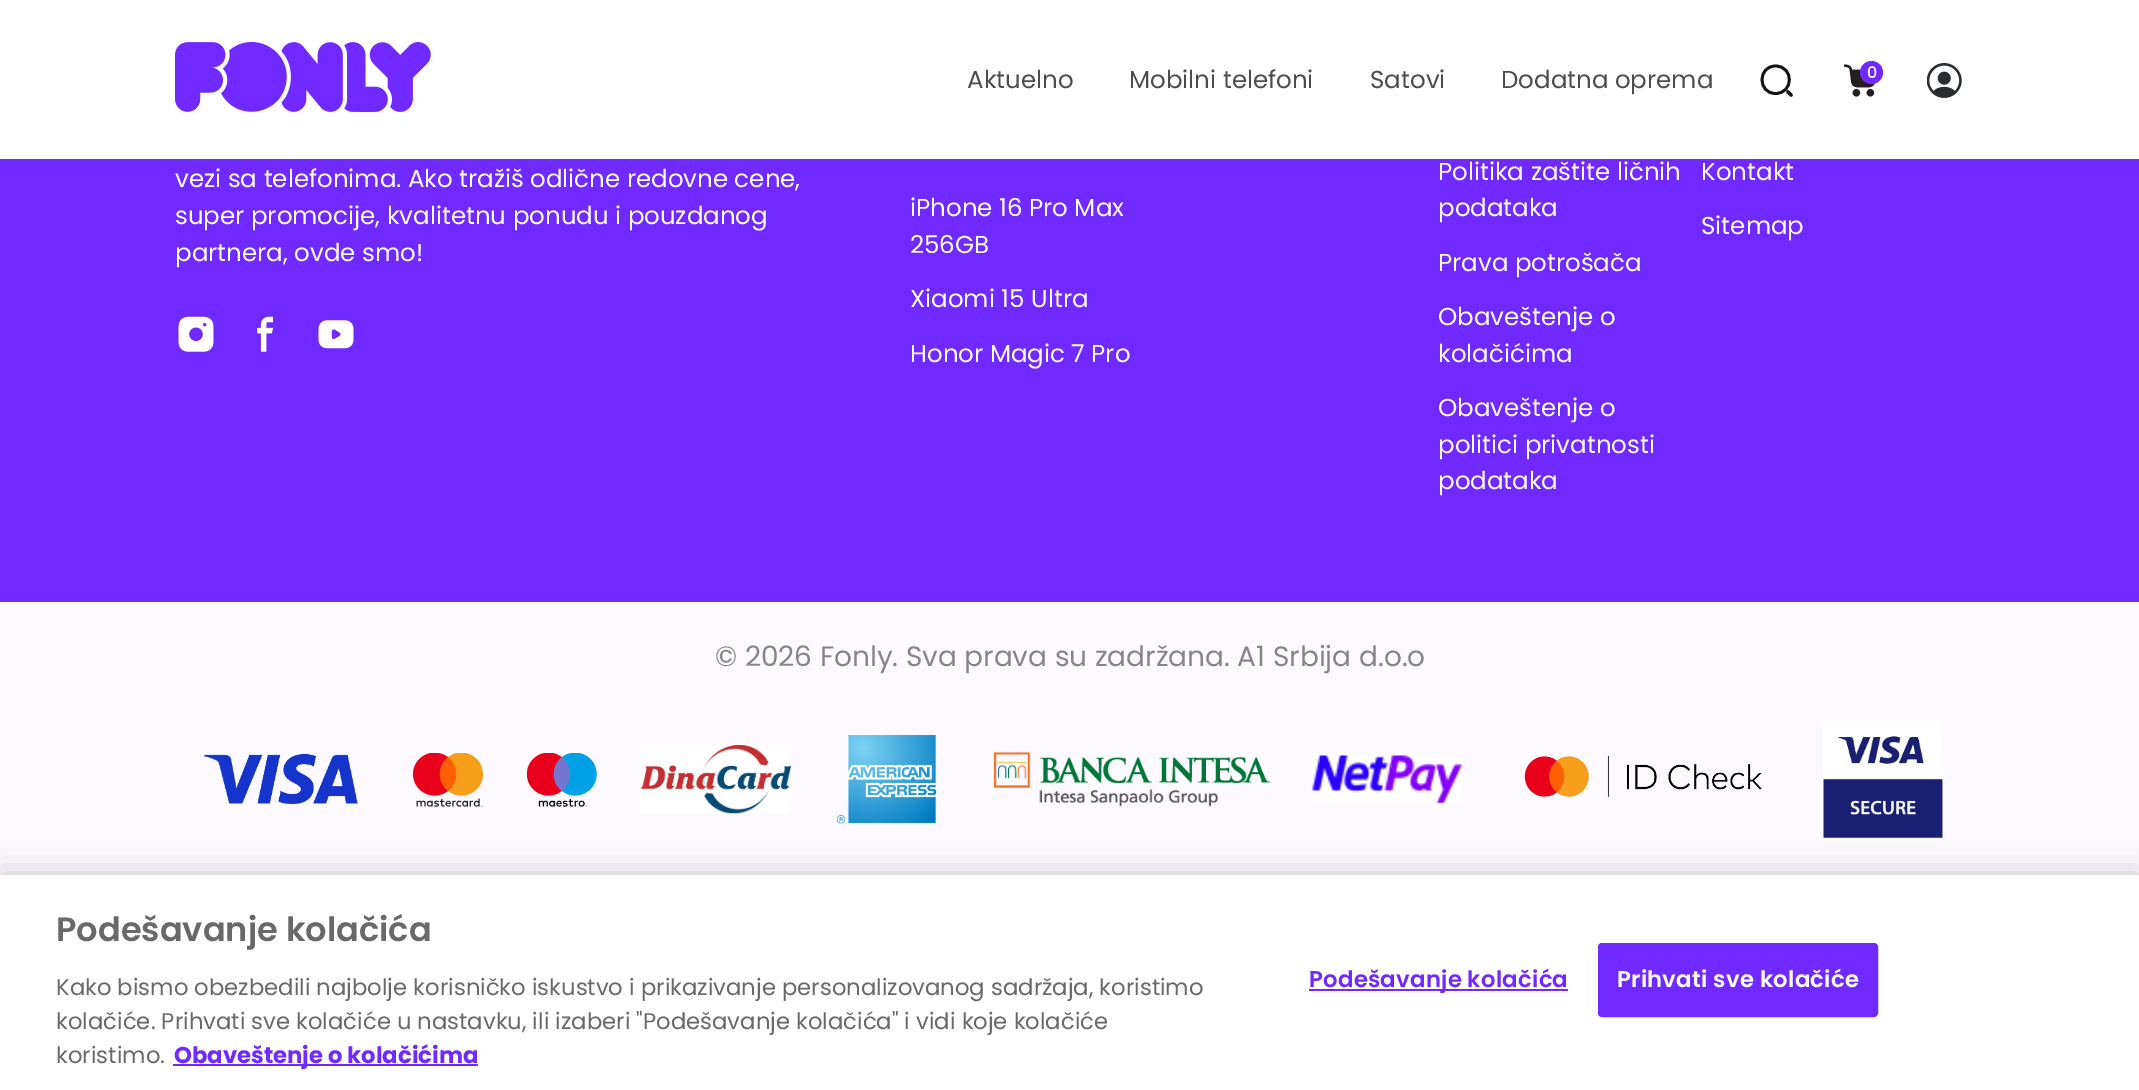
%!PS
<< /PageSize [2139 1090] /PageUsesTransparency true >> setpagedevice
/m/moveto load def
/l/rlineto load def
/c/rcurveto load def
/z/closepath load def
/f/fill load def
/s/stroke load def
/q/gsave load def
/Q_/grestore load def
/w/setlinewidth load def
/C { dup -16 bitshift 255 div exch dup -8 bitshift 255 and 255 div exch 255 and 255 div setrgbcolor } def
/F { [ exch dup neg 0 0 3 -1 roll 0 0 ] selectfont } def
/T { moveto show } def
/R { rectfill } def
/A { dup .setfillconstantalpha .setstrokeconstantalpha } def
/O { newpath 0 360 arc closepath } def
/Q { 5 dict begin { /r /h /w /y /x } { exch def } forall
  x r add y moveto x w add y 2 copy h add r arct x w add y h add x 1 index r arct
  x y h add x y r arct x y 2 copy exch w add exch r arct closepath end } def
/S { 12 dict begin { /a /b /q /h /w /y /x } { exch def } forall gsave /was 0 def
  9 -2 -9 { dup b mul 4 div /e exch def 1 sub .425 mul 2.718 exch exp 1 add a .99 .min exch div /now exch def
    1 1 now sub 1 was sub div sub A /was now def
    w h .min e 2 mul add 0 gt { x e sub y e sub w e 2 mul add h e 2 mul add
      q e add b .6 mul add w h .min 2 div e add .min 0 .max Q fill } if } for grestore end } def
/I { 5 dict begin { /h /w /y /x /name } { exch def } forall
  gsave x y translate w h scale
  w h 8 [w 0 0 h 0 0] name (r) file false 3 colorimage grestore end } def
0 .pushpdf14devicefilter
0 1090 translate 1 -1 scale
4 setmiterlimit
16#FCFAFF C
0 0 2139 1090 R
16#FFFFFF C
0 0 2139 159 R
(1.rgb) 175 42 256 70 I
/Poppins-Regular 24.5 F
16#4C4B4E C
(Aktuelno) 967 88 T
(Mobilni telefoni) 1129 88 T
(Satovi) 1370 88 T
(Dodatna oprema) 1501 88 T
16#131216 C
2.8 w
1 setlinecap
1 setlinejoin
1775.5 93.5 m 18.5 0 18.5 -27.5 0 -27.5 c -18 0 -18 27.5 0 27.5 c z s
3.5 w
1791 95 m -3 -3 l s
(2.rgb) 1844 64 32 33 I
16#7029FF C
1871.5 72.5 11.5 O f
/Poppins-Medium 16 F
16#FFFFFF C
(0) 1867 78 T
(3.rgb) 1927 63 35 35 I
16#7029FF C
0 159 2139 443 R
/Poppins-Regular 24.5 F
16#FFFFFF C
(vezi sa telefonima. Ako tražiš odlične redovne cene,) 175 187 T
(super promocije, kvalitetnu ponudu i pouzdanog) 175 224 T
(partnera, ovde smo!) 175 261 T
(4.rgb) 178 316 36 36 I
(5.rgb) 257 316 16 36 I
(6.rgb) 318 320 36 29 I
(iPhone 16 Pro Max) 910 216 T
(256GB) 910 253 T
(Xiaomi 15 Ultra) 910 307 T
(Honor Magic 7 Pro) 910 362 T
(Politika zaštite ličnih) 1438 180 T
(podataka) 1438 216 T
(Prava potrošača) 1438 271 T
(Obaveštenje o) 1438 325 T
(kolačićima) 1438 362 T
(Obaveštenje o) 1438 416 T
(politici privatnosti) 1438 453 T
(podataka) 1438 489 T
(Kontakt) 1701 180 T
(Sitemap) 1701 234 T
/Poppins-Regular 28 F
16#86858A C
(© 2026 Fonly. Sva prava su zadržana. A1 Srbija d.o.o) 715 666 T
(7.rgb) 204 753 154 51 I
(8.rgb) 412 753 71 54 I
(9.rgb) 527 753 70 54 I
(10.rgb) 640 745 151 69 I
(11.rgb) 837 734 100 90 I
(12.rgb) 994 752 277 55 I
(13.rgb) 1312 755 151 49 I
(14.rgb) 1524 755 238 42 I
(15.rgb) 1823 721 120 117 I
16#000000 C
0 875 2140 215 0 16 .2 S
16#FFFFFF C
0 875 2139 215 R
/Poppins-SemiBold 33.6 F
16#696969 C
(Podešavanje kolačića) 56 941 T
/Poppins-Regular 22.75 F
(Kako bismo obezbedili najbolje korisničko iskustvo i prikazivanje personalizovanog sadržaja, koristimo) 56 995 T
(kolačiće. Prihvati sve kolačiće u nastavku, ili izaberi "Podešavanje kolačića" i vidi koje kolačiće) 56 1029 T
(koristimo.) 56 1063 T
16#7029FF C
173 1064 305 2 R
/Poppins-Bold 22.75 F
(Obaveštenje o kolačićima) 174 1063 T
1309 989 259 2 R
/Poppins-SemiBold 22.75 F
1309 987 m .25 0 (Podešavanje kolačića) ashow
1599 944 278 72 3 Q q f Q_
2 w
0 setlinecap
0 setlinejoin
s
16#FFFFFF C
1617 987 m .25 0 (Prihvati sve kolačiće) ashow
.poppdf14devicefilter showpage
